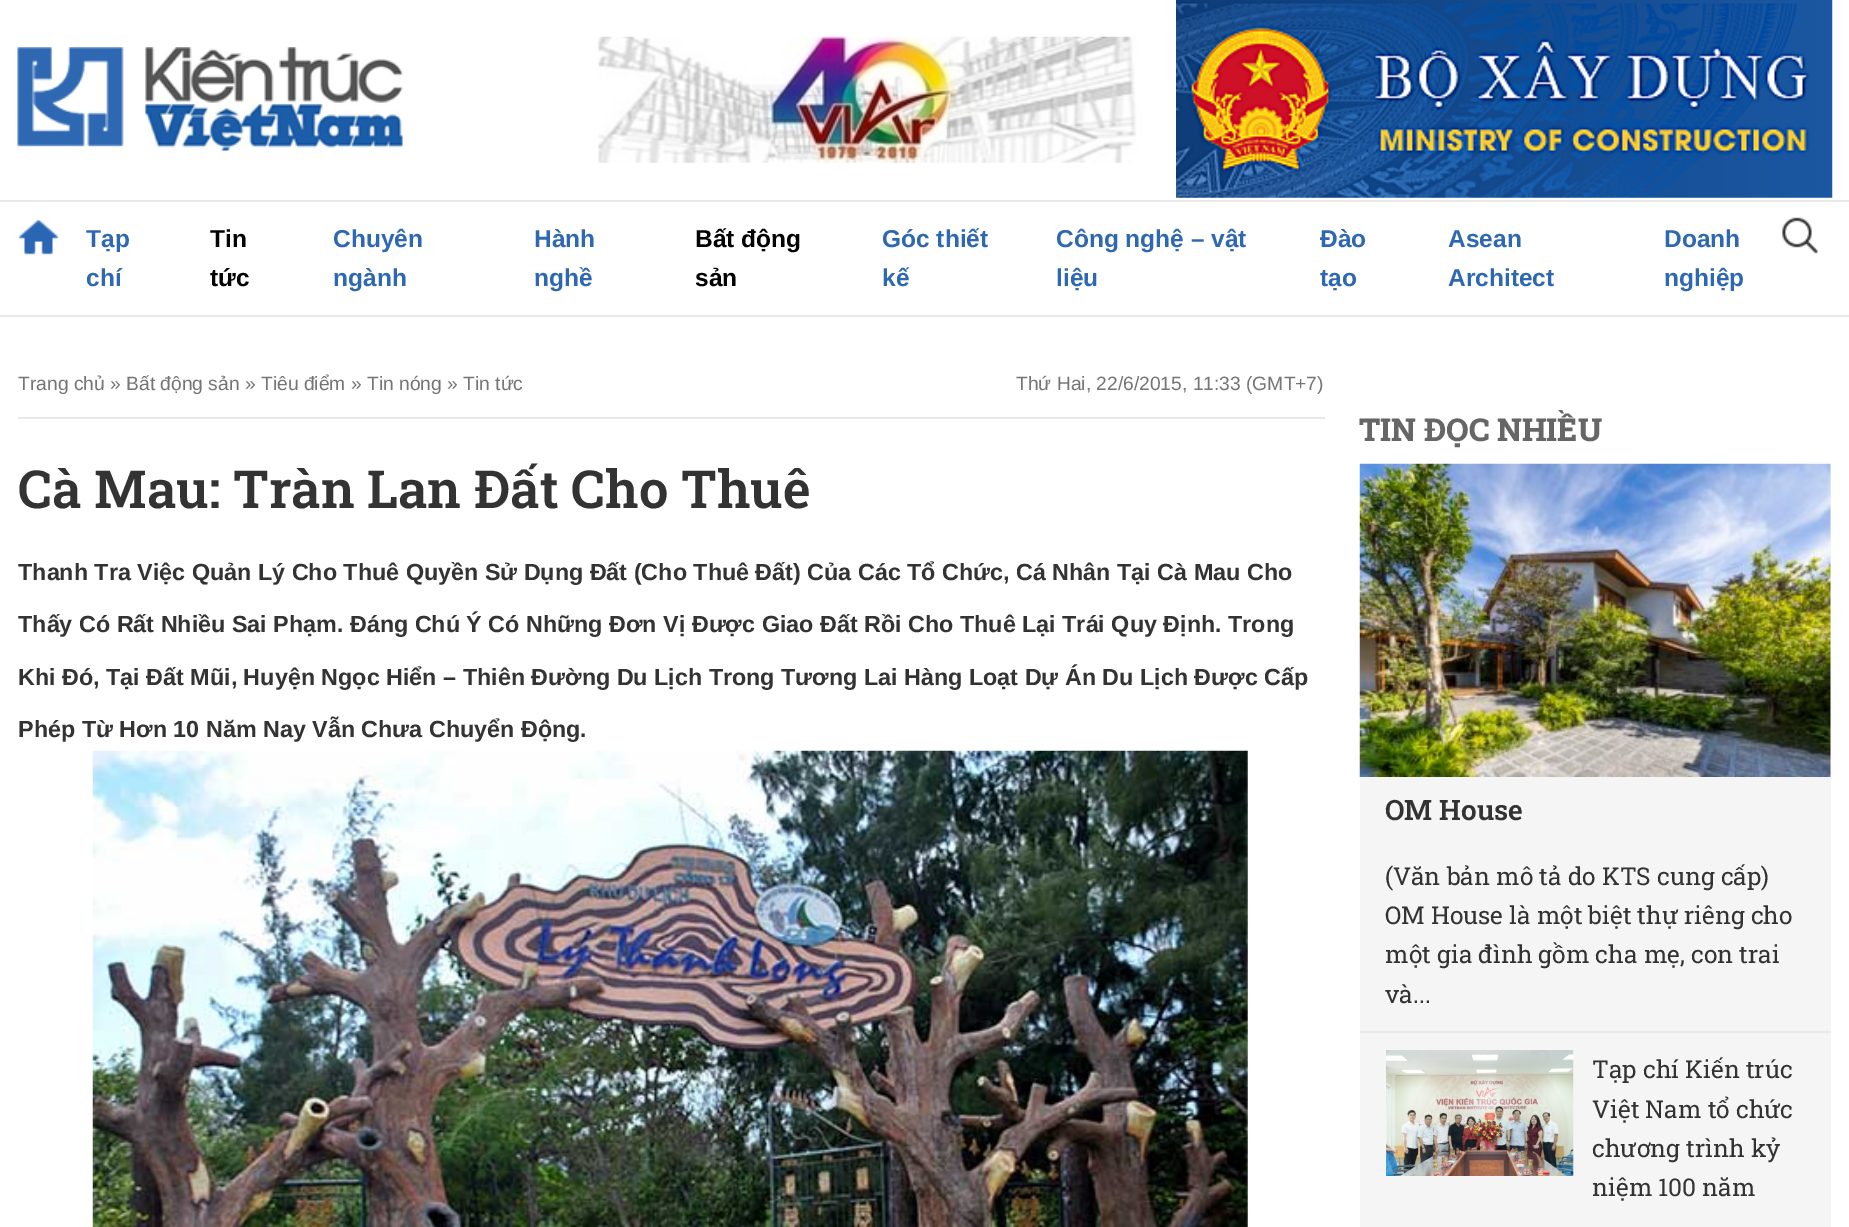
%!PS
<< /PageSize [1849 1227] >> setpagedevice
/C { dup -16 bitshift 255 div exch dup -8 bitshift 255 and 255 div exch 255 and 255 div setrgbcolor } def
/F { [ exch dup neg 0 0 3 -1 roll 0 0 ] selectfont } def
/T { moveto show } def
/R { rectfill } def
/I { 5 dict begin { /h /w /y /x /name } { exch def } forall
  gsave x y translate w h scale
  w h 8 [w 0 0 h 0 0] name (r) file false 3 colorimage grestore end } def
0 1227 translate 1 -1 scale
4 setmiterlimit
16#FFFFFF C
0 0 1849 1227 R
(1.rgb) 17 47 386 104 I
(2.rgb) 598 36 539 127 I
(3.rgb) 1176 0 657 198 I
16#E9E9E9 C
0 200 1849 2 R
0 315 1849 2 R
(4.rgb) 18 220 41 35 I
/LiberationSans-Bold 24.5 F
16#2E68B2 C
(Tạp) 86 247 T
(chí) 86 286 T
16#000000 C
(Tin) 210 247 T
(tức) 210 286 T
16#2E68B2 C
(Chuyên) 333 247 T
(ngành) 333 286 T
(Hành) 534 247 T
(nghề) 534 286 T
16#000000 C
(Bất động) 695 247 T
(sản) 695 286 T
16#2E68B2 C
(Góc thiết) 882 247 T
(kế) 882 286 T
(Công nghệ – vật) 1056 247 T
(liệu) 1056 286 T
(Đào) 1320 247 T
(tạo) 1320 286 T
(Asean) 1448 247 T
(Architect) 1448 286 T
(Doanh) 1664 247 T
(nghiệp) 1664 286 T
(5.rgb) 1782 217 36 37 I
16#E9E9E9 C
18 417 1307 2 R
/LiberationSans-Regular 19.25 F
16#757575 C
(Trang chủ » Bất động sản » Tiêu điểm » Tin nóng » Tin tức) 18 390 T
(Thứ Hai, 22/6/2015, 11:33 \(GMT+7\)) 1016 390 T
/RobotoSlab-SemiBold 52.5 F
16#333333 C
(Cà Mau: Tràn Lan Đất Cho Thuê) 18 508 T
/LiberationSans-Bold 23.33 F
(Thanh Tra Việc Quản Lý Cho Thuê Quyền Sử Dụng Đất \(Cho Thuê Đất\) Của Các Tổ Chức, Cá Nhân Tại Cà Mau Cho) 18 580 T
(Thấy Có Rất Nhiều Sai Phạm. Đáng Chú Ý Có Những Đơn Vị Được Giao Đất Rồi Cho Thuê Lại Trái Quy Định. Trong) 18 632 T
(Khi Đó, Tại Đất Mũi, Huyện Ngọc Hiển – Thiên Đường Du Lịch Trong Tương Lai Hàng Loạt Dự Án Du Lịch Được Cấp) 18 685 T
(Phép Từ Hơn 10 Năm Nay Vẫn Chưa Chuyển Động.) 18 737 T
(6.rgb) 92 750 1156 477 I
/RobotoSlab-ExtraBold 31.5 F
16#666666 C
(TIN ĐỌC NHIỀU) 1359 441 T
16#F5F5F5 C
1360 464 471 763 R
16#E9E9E9 C
1360 1031 471 2 R
(7.rgb) 1359 463 472 314 I
/RobotoSlab-SemiBold 28 F
16#333333 C
(OM House) 1385 820 T
/RobotoSlab-Regular 24.5 F
(\(Văn bản mô tả do KTS cung cấp\)) 1385 885 T
(OM House là một biệt thự riêng cho) 1385 924 T
(một gia đình gồm cha mẹ, con trai) 1385 963 T
(và...) 1385 1003 T
(8.rgb) 1386 1050 188 126 I
(Tạp chí Kiến trúc) 1592 1078 T
(Việt Nam tổ chức) 1592 1118 T
(chương trình kỷ) 1592 1157 T
(niệm 100 năm) 1592 1196 T
showpage
